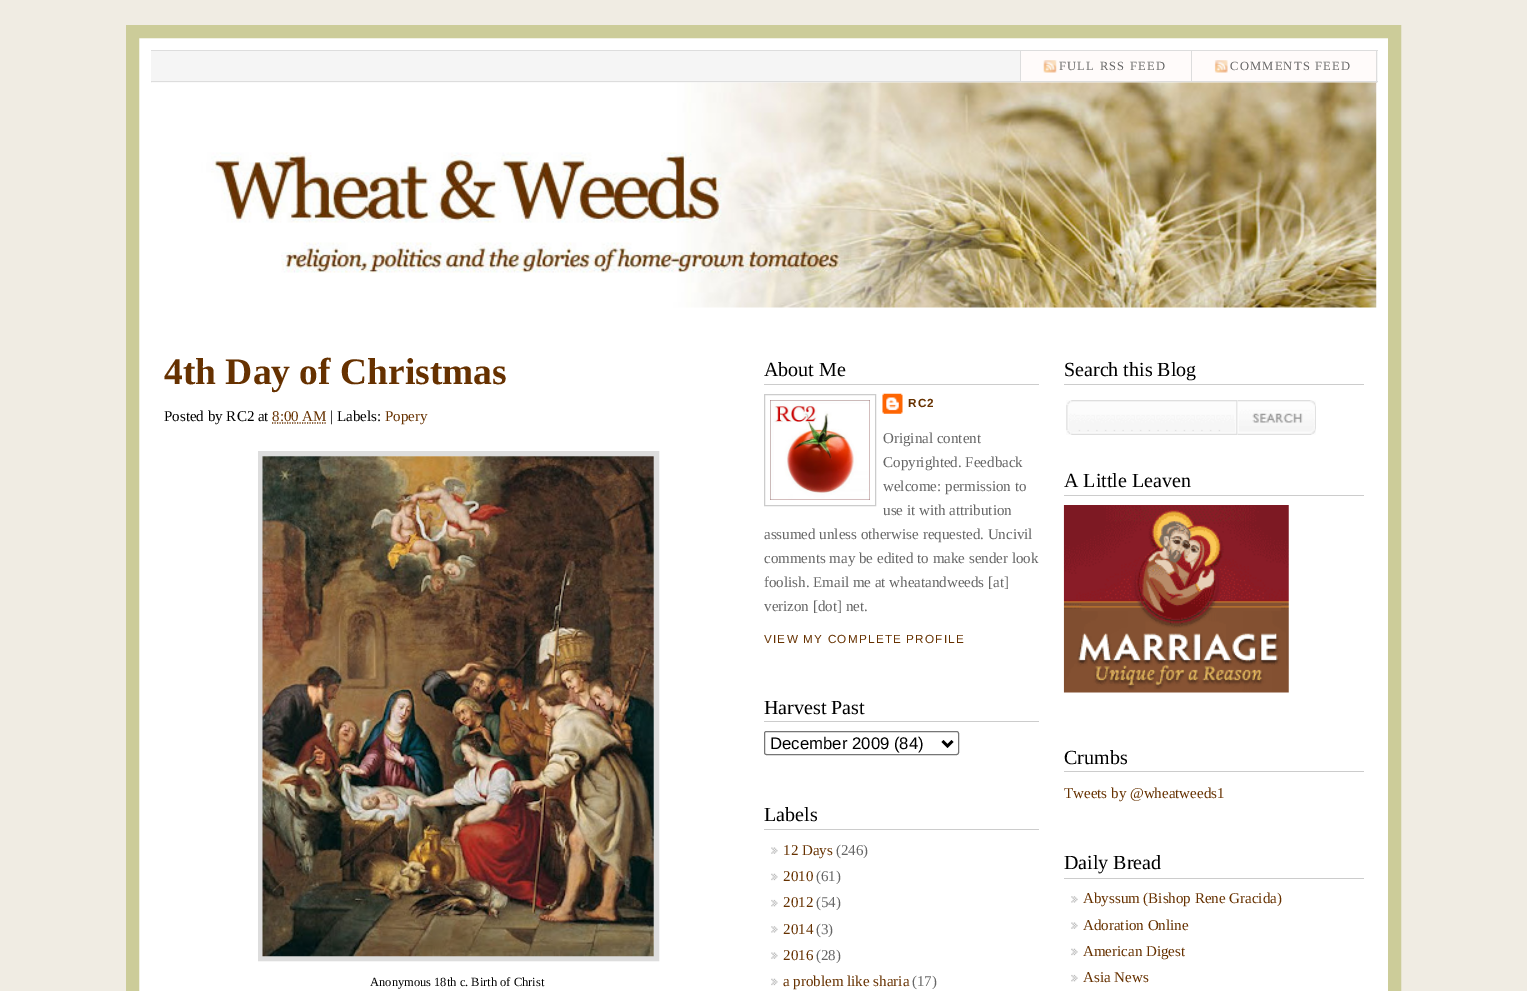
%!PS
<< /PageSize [1527 991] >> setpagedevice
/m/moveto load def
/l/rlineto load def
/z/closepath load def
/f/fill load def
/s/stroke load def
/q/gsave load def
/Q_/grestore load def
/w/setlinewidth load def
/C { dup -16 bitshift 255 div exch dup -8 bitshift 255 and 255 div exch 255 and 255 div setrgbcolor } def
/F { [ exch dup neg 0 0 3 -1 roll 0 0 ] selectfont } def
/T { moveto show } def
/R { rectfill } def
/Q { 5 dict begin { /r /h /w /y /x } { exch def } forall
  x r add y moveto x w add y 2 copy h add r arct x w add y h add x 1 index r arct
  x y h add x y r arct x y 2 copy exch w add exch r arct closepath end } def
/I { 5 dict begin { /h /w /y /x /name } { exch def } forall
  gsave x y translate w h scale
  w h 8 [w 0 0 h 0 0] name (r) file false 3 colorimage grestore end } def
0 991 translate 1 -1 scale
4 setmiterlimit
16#F0ECE3 C
0 0 1527 991 R
16#FFFFFF C
132.5 31.5 m 1262 0 l 0 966 l -1262 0 l z q f Q_
16#CCCC99 C
13 w
s
16#F5F5F5 C
151 51 1227 32 R
16#DDDDDD C
151 50 1227 1 R
1376 50 1 33 R
151 81 1227 1 R
16#FFFBFA C
1021 51 170 30 R
16#DDDDDD C
1020 51 1 30 R
(1.rgb) 1043 60 14 13 I
/LiberationSerif-Regular 12.5 F
16#666666 C
1059 70 m 1.25 0 (FULL RSS FEED) ashow
16#FFFBFA C
1192 51 184 30 R
16#DDDDDD C
1191 51 1 30 R
(2.rgb) 1214 60 14 13 I
16#666666 C
1230 70 m 1.25 0 (COMMENTS FEED) ashow
(3.rgb) 152 82 1225 226 I
/LiberationSerif-Bold 37.5 F
16#663100 C
(4th Day of Christmas) 164 384 T
/LiberationSerif-Regular 15 F
16#000000 C
(Posted by RC2 at) 164 421 T
16#663100 C
(8:00 AM) 272 421 T
1.2 w
[1.25 1.25] 0 setdash
272 423 m 54.5 0 l s
16#000000 C
(| Labels:) 330 421 T
16#663100 C
(Popery) 385 421 T
16#DDDDDD C
5 w
[] 0 setdash
260.5 453.5 396 505 rectstroke
(4.rgb) 262 456 392 501 I
/LiberationSerif-Regular 12.5 F
16#000000 C
(Anonymous 18th c. Birth of Christ) 370 986 T
16#CCCCCC C
764 384 275 1 R
/LiberationSerif-Regular 20 F
16#000000 C
(About Me) 764 376 T
16#CCCCCC C
1 w
764.5 394.5 111 111 rectstroke
(5.rgb) 770 400 100 100 I
(6.rgb) 882 393 21 21 I
/LiberationSans-Bold 11.75 F
16#663100 C
908 407 m 1.2 0 (RC2) ashow
/LiberationSerif-Regular 15 F
16#666666 C
(Original content) 883 443 T
(Copyrighted. Feedback) 883 467 T
(welcome: permission to) 883 491 T
(use it with attribution) 883 515 T
(assumed unless otherwise requested. Uncivil) 764 539 T
(comments may be edited to make sender look) 764 563 T
(foolish. Email me at wheatandweeds [at]) 764 587 T
(verizon [dot] net.) 764 611 T
/LiberationSans-Regular 11.75 F
16#663100 C
764 643 m 1.2 0 (VIEW MY COMPLETE PROFILE) ashow
16#CCCCCC C
764 721 275 1 R
/LiberationSerif-Regular 20 F
16#000000 C
(Harvest Past) 764 714 T
16#767676 C
764.5 731.5 194 23 2 Q s
16#000000 C
2.5 w
942.5 741 m 5 5 l 5 -5 l s
/LiberationSans-Regular 16.75 F
(December 2009 \(84\)) 770 749 T
16#CCCCCC C
764 829 275 1 R
/LiberationSerif-Regular 20 F
16#000000 C
(Labels) 764 821 T
(7.rgb) 771 847 7 7 I
/LiberationSerif-Regular 15 F
16#663100 C
(12 Days) 783 855 T
16#666666 C
(\(246\)) 836 855 T
(8.rgb) 771 873 7 8 I
16#663100 C
(2010) 783 881 T
16#666666 C
(\(61\)) 816 881 T
(9.rgb) 771 899 7 8 I
16#663100 C
(2012) 783 907 T
16#666666 C
(\(54\)) 816 907 T
(10.rgb) 771 926 7 7 I
16#663100 C
(2014) 783 934 T
16#666666 C
(\(3\)) 816 934 T
(7.rgb) 771 952 7 7 I
16#663100 C
(2016) 783 960 T
16#666666 C
(\(28\)) 816 960 T
(8.rgb) 771 978 7 8 I
16#663100 C
(a problem like sharia) 783 986 T
16#666666 C
(\(17\)) 912 986 T
16#CCCCCC C
1064 384 300 1 R
/LiberationSerif-Regular 20 F
16#000000 C
(Search this Blog) 1064 376 T
(11.rgb) 1066 400 172 35 I
(12.rgb) 1237 400 79 35 I
16#CCCCCC C
1064 495 300 1 R
16#000000 C
(A Little Leaven) 1064 487 T
(13.rgb) 1063 505 226 188 I
16#CCCCCC C
1064 771 300 1 R
16#000000 C
(Crumbs) 1064 764 T
/LiberationSerif-Regular 15 F
16#663100 C
(Tweets by @wheatweeds1) 1064 798 T
16#CCCCCC C
1064 878 300 1 R
/LiberationSerif-Regular 20 F
16#000000 C
(Daily Bread) 1064 869 T
(14.rgb) 1071 896 7 7 I
/LiberationSerif-Regular 15 F
16#663100 C
(Abyssum \(Bishop Rene Gracida\)) 1083 903 T
(15.rgb) 1071 922 7 7 I
(Adoration Online) 1083 930 T
(16.rgb) 1071 948 7 8 I
(American Digest) 1083 956 T
(17.rgb) 1071 974 7 8 I
(Asia News) 1083 982 T
showpage
